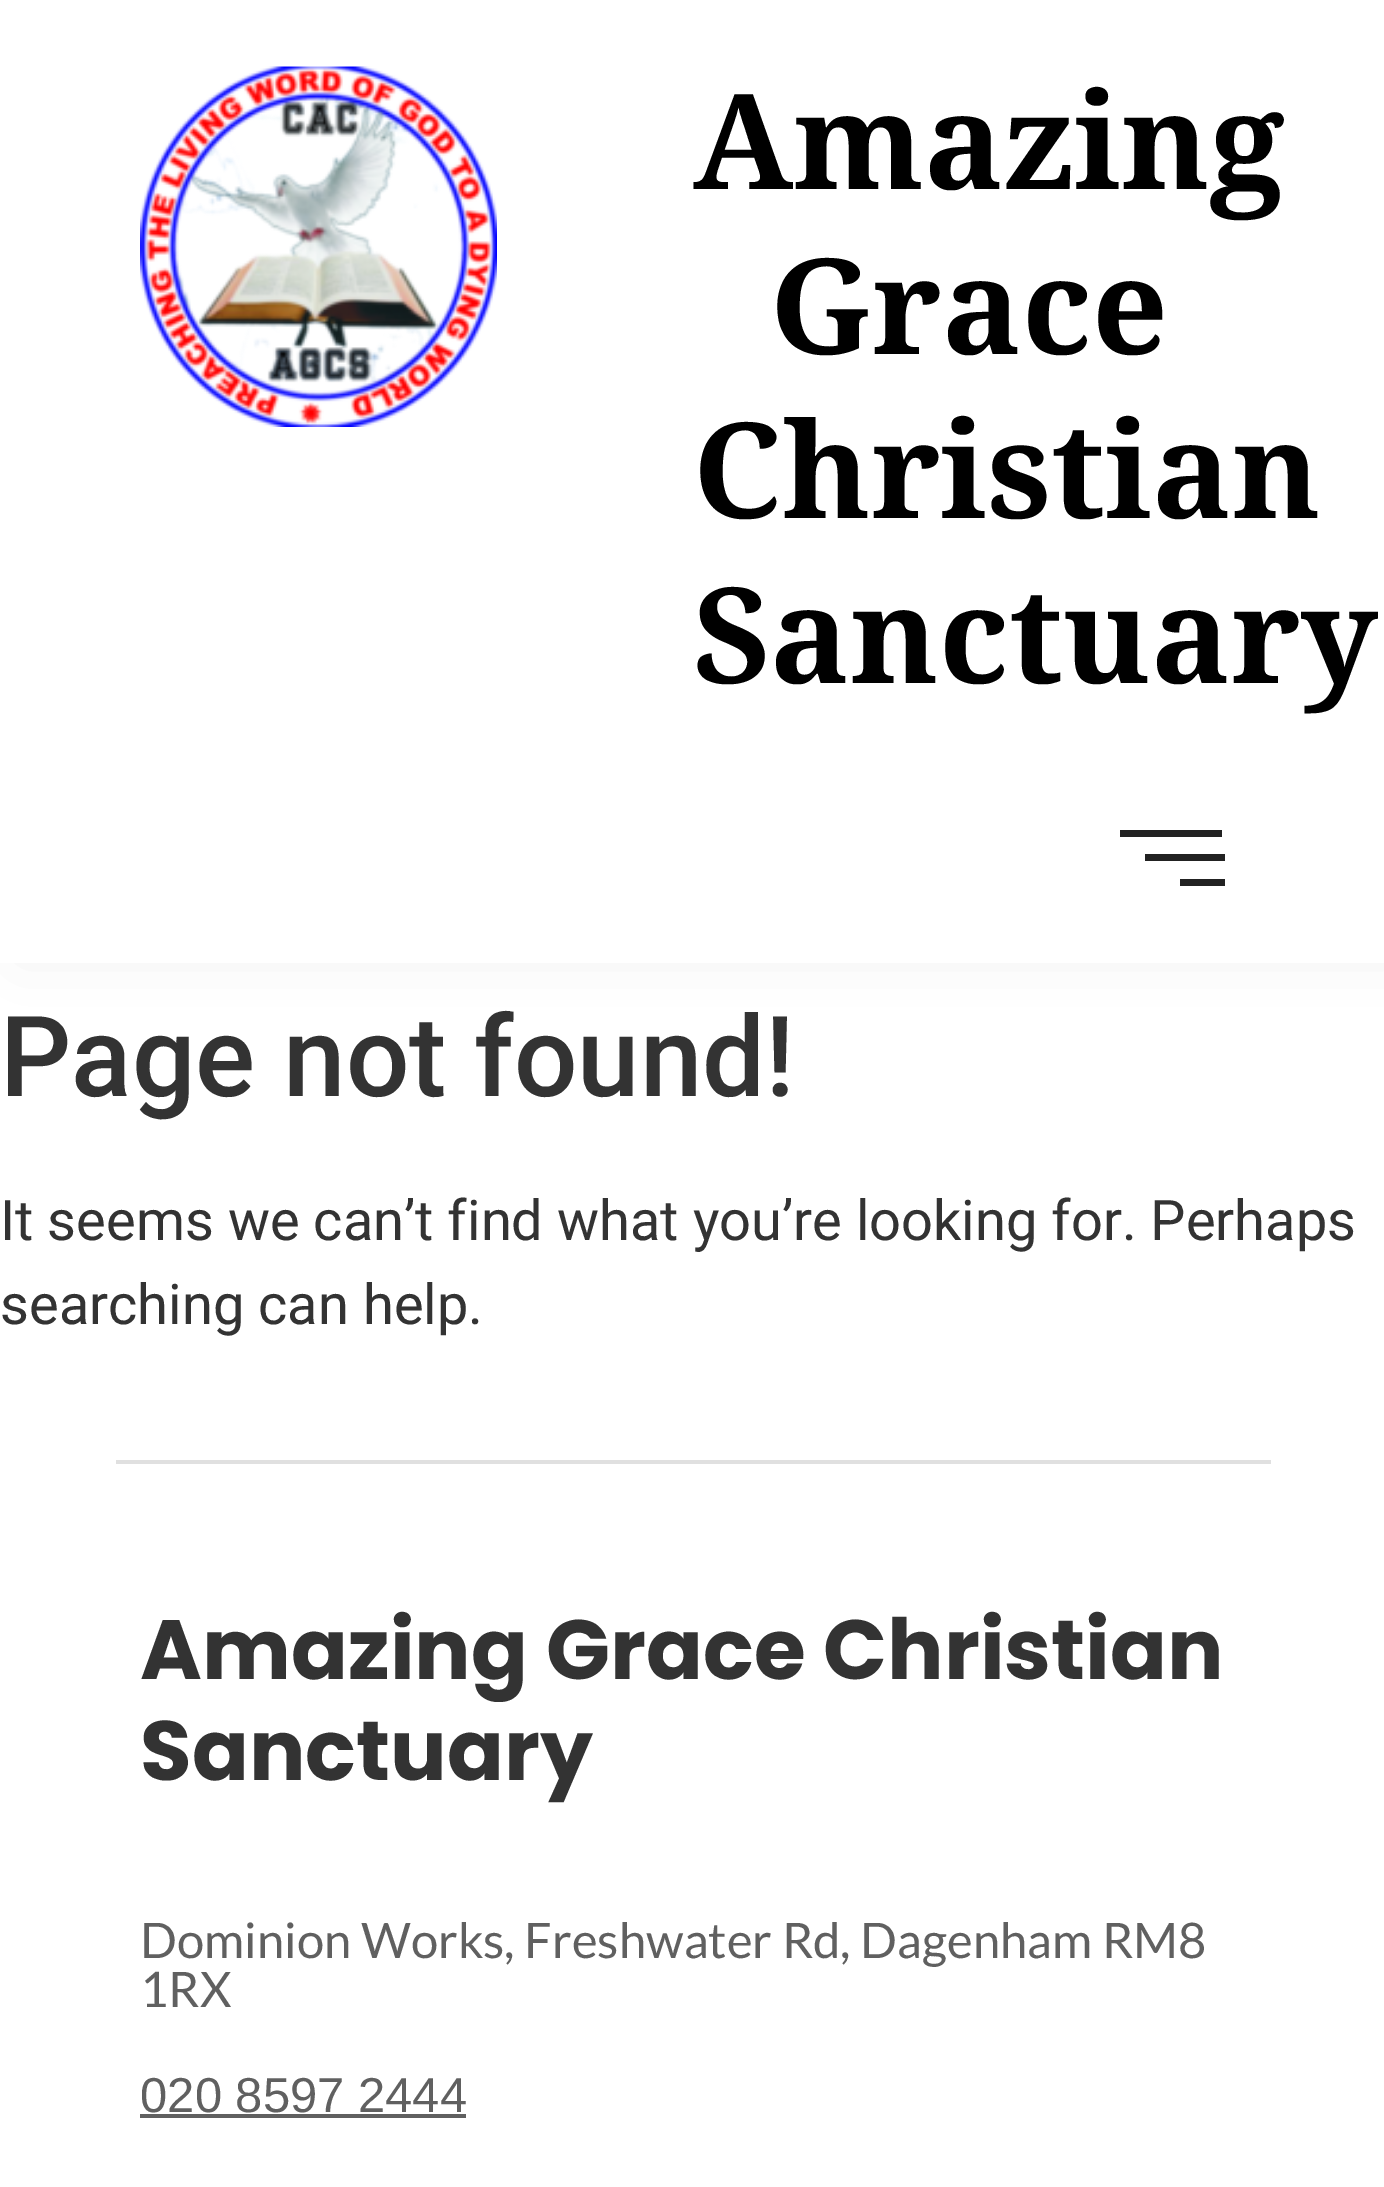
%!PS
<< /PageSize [1384 2187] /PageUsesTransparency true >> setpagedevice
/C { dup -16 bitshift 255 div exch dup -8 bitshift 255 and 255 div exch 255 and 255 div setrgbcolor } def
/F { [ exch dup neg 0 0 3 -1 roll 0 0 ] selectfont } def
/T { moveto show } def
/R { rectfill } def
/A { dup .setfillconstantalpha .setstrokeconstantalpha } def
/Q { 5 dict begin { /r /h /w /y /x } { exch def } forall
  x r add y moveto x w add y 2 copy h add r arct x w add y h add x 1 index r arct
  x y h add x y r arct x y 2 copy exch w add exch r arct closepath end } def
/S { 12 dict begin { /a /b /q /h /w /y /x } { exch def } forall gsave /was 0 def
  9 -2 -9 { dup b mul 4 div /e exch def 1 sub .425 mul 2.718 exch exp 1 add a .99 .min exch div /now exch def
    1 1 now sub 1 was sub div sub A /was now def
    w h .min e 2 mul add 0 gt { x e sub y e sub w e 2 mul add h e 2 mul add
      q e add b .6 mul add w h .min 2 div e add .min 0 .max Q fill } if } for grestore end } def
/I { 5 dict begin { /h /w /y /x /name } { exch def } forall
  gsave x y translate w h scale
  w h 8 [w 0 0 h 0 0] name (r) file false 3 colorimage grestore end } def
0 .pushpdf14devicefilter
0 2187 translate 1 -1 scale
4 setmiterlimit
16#FFFFFF C
0 0 1384 2187 R
16#E6E6E6 C
14 -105 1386 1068 0 35 .5 S
16#FFFFFF C
0 0 1384 963 R
(1.rgb) 140 66 357 361 I
/NotoNaskhArabic-Bold 133 F
16#000000 C
(Amazing) 693 189 T
(Grace) 770 354 T
(Christian) 693 518 T
(Sanctuary) 693 683 T
16#222222 C
1120 830 102 7 R
1145 854 80 7 R
1180 879 45 7 R
/Roboto-Medium 112 F
16#333333 C
(Page not found!) 0 1096 T
/Roboto-Regular 56 F
(It seems we can’t find what you’re looking for. Perhaps) 0 1240 T
(searching can help.) 0 1324 T
16#E0E0E0 C
116 1460 1155 4 R
/Poppins-Bold 84 F
16#333333 C
(Amazing Grace Christian) 140 1679 T
(Sanctuary) 140 1780 T
/Lato-Regular 49 F
16#606060 C
(Dominion Works, Freshwater Rd, Dagenham RM8) 140 1958 T
(1RX) 140 2007 T
/LiberationSans-Regular 49 F
(020 8597 2444) 140 2112 T
140 2114 326 4 R
.poppdf14devicefilter showpage
